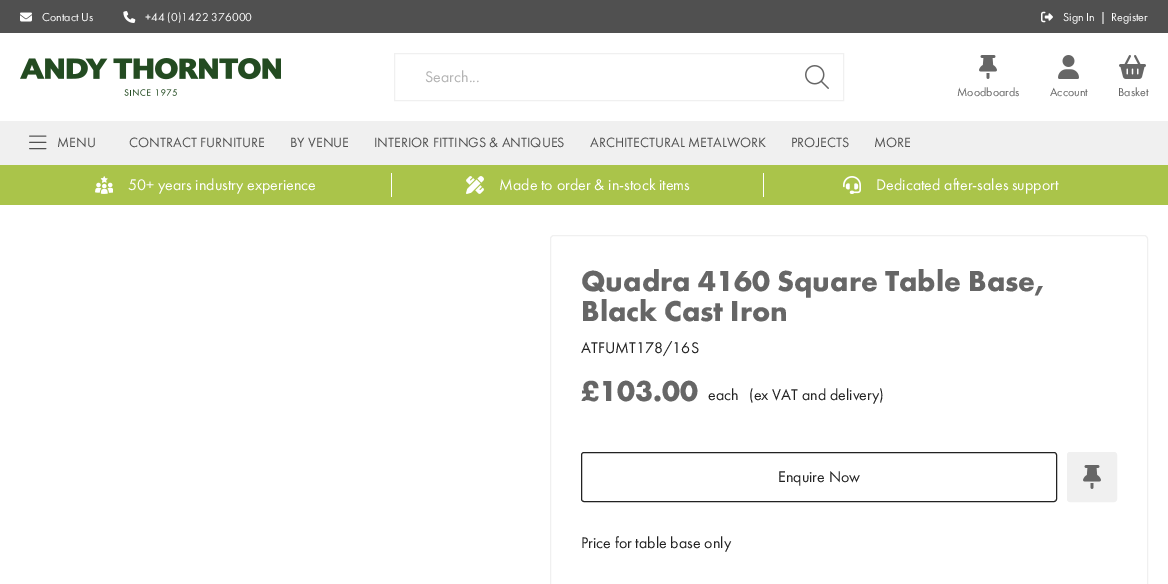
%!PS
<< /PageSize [1168 584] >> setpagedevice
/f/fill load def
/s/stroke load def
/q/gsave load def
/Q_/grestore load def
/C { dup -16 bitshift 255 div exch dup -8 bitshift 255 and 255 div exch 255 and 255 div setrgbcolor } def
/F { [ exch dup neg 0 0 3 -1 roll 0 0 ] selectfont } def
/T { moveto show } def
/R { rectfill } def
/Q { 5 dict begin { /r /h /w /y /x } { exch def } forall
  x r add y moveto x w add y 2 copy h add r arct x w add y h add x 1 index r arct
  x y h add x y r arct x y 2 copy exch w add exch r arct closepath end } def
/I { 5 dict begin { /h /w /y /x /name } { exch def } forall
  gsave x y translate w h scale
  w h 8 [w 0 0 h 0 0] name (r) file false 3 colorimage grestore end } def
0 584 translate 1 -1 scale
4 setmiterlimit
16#FFFFFF C
0 0 1168 584 R
16#505050 C
0 0 1168 33 R
(1.rgb) 20 12 12 10 I
/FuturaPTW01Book-Regular 12 F
16#FFFFFF C
(Contact Us) 42 21 T
(2.rgb) 123 11 13 12 I
(+44 \(0\)1422 376000) 145 21 T
(3.rgb) 1041 11 12 12 I
(Sign In) 1063 21 T
(|) 1100 21 T
(Register) 1111 21 T
(4.rgb) 20 58 261 38 I
16#F0F0F0 C
394.5 53.5 449 47 rectstroke
/FuturaPTW01Book-Regular 16 F
16#B3B3B3 C
(Search...) 425 82 T
(5.rgb) 805 65 24 24 I
(6.rgb) 979 55 18 24 I
/FuturaPTW01Book-Regular 12 F
16#666666 C
(Moodboards) 957 96 T
(7.rgb) 1058 55 21 24 I
(Account) 1050 96 T
(8.rgb) 1119 55 27 24 I
(Basket) 1118 96 T
16#F0F0F0 C
0 121 1168 44 R
(9.rgb) 29 135 18 15 I
/FuturaPTW01Book-Regular 14 F
16#505050 C
(MENU) 57 147 T
(CONTRACT FURNITURE) 129 147 T
(BY VENUE) 290 147 T
(INTERIOR FITTINGS & ANTIQUES) 374 147 T
(ARCHITECTURAL METALWORK) 590 147 T
(PROJECTS) 791 147 T
(MORE) 874 147 T
16#AAC44A C
0 165 1168 40 R
16#FFFFFF C
391 173 1 24 R
(10.rgb) 95 176 18 18 I
/FuturaPTW01Book-Regular 16 F
(50+ years industry experience) 128 190 T
763 173 1 24 R
(11.rgb) 466 176 18 18 I
(Made to order & in-stock items) 499 190 T
(12.rgb) 843 176 18 18 I
(Dedicated after-sales support) 876 190 T
16#F0F0F0 C
550.5 235.5 597 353 3.5 Q s
/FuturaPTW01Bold-Bold 30 F
16#666666 C
(Quadra 4160 Square Table Base,) 581 291 T
(Black Cast Iron) 581 321 T
/FuturaPTW01Book-Regular 16 F
16#222222 C
(ATFUMT178/16S) 581 353 T
/FuturaPTW01Bold-Bold 30 F
16#666666 C
(£103.00) 581 401 T
/FuturaPTW01Book-Regular 16 F
16#222222 C
(each) 708 400 T
(\(ex VAT and delivery\)) 749 400 T
581.5 452.5 475 49 2.5 Q s
(Enquire Now) 778 482 T
16#F0F0F0 C
1067.5 452.5 49 49 2.5 Q q f Q_
s
(13.rgb) 1083 465 18 24 I
16#222222 C
(Price for table base only) 581 548 T
showpage
